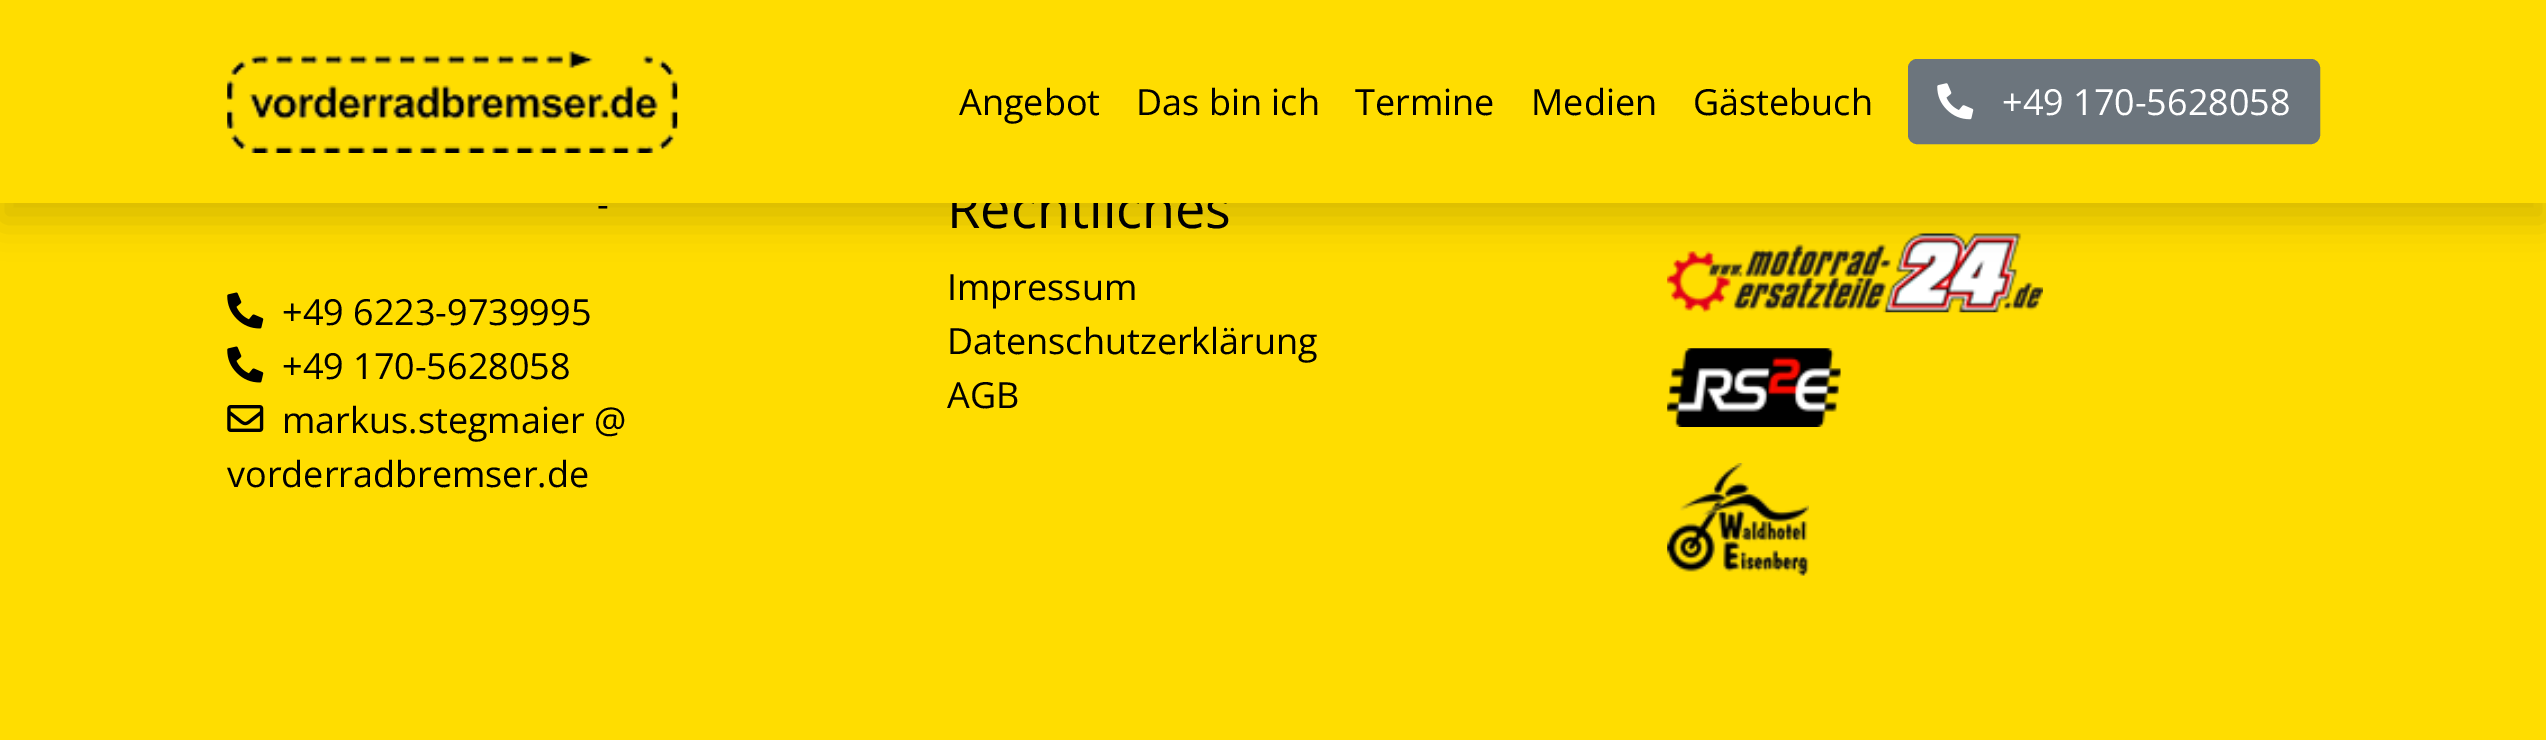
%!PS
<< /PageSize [2546 740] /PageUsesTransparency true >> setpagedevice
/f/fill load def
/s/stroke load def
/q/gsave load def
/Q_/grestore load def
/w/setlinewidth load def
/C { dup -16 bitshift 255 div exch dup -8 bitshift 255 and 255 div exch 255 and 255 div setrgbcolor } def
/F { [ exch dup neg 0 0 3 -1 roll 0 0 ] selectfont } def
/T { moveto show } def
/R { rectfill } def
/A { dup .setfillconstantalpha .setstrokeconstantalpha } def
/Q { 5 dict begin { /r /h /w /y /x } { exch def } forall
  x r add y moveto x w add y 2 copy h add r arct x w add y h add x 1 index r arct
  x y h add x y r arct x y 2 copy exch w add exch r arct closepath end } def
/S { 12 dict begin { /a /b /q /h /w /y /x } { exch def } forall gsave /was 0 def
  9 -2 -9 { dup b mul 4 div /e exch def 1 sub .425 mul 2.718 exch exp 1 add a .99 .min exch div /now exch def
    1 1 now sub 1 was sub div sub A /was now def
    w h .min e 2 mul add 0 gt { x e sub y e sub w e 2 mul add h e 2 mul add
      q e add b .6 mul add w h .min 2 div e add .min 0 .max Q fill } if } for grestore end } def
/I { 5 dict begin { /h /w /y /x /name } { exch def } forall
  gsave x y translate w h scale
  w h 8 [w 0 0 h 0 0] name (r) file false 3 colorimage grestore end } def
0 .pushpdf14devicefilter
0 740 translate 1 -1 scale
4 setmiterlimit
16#FFDD00 C
0 0 2546 740 R
(5.rgb) 1667 233 376 80 I
16#000000 C
0 18 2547 203 0 18 .15 S
/OpenSans-Regular 54 F
(Rechtliches) 947 228 T
16#FFDD00 C
0 0 2546 203 R
(1.rgb) 227 51 451 102 I
/OpenSans-Regular 36 F
16#000000 C
(Angebot) 959 115 T
(Das bin ich) 1136 115 T
(Termine) 1355 115 T
(Medien) 1531 115 T
(Gästebuch) 1693 115 T
16#6C757D C
1909 60 410 83 8 Q q f Q_
2 w
s
(2.rgb) 1937 83 37 37 I
16#FFFFFF C
(+49 170-5628058) 2002 115 T
16#000000 C
(-) 597 217 T
(3.rgb) 227 292 37 37 I
(+49 6223-9739995) 282 325 T
(3.rgb) 227 346 37 37 I
(+49 170-5628058) 282 379 T
(4.rgb) 227 405 37 27 I
(markus.stegmaier @) 282 433 T
(vorderradbremser.de) 227 487 T
(Impressum) 947 300 T
(Datenschutzerklärung) 947 354 T
(AGB) 947 408 T
(6.rgb) 1667 348 174 79 I
(7.rgb) 1667 463 142 113 I
.poppdf14devicefilter showpage
